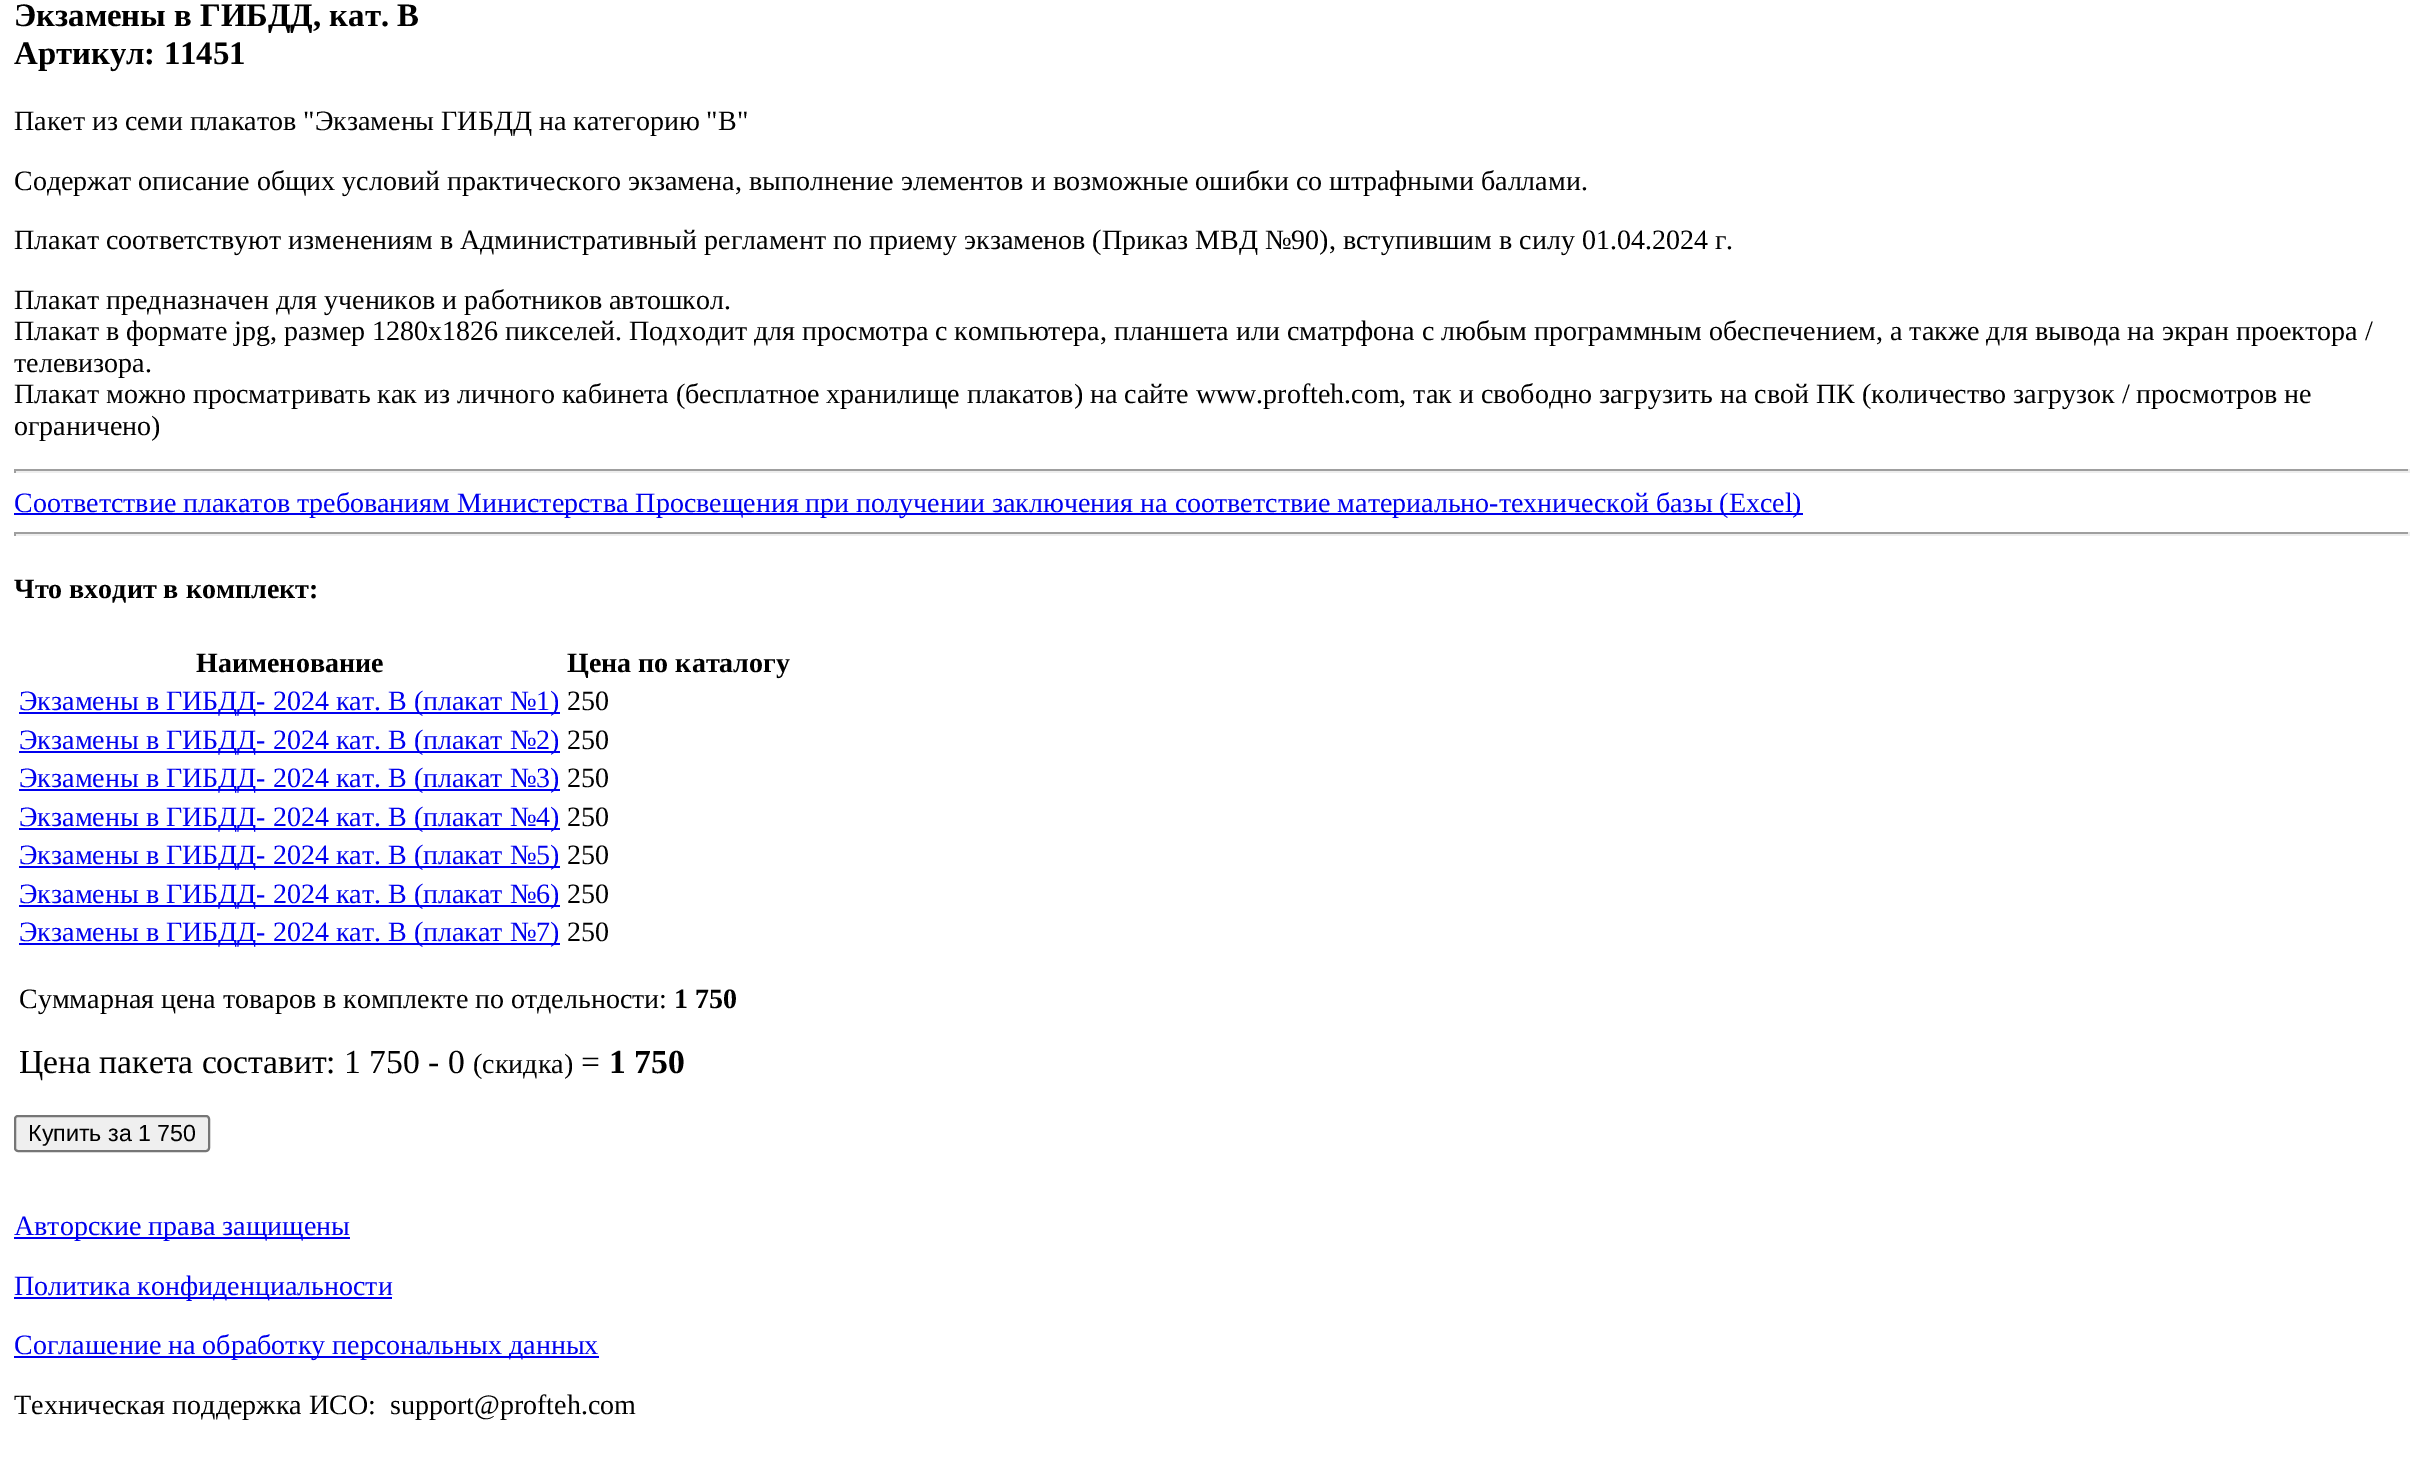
%!PS
<< /PageSize [2423 1480] >> setpagedevice
/f/fill load def
/s/stroke load def
/q/gsave load def
/Q_/grestore load def
/w/setlinewidth load def
/C { dup -16 bitshift 255 div exch dup -8 bitshift 255 and 255 div exch 255 and 255 div setrgbcolor } def
/F { [ exch dup neg 0 0 3 -1 roll 0 0 ] selectfont } def
/T { moveto show } def
/R { rectfill } def
/Q { 5 dict begin { /r /h /w /y /x } { exch def } forall
  x r add y moveto x w add y 2 copy h add r arct x w add y h add x 1 index r arct
  x y h add x y r arct x y 2 copy exch w add exch r arct closepath end } def
0 1480 translate 1 -1 scale
4 setmiterlimit
16#FFFFFF C
0 0 2423 1480 R
/LiberationSerif-Bold 32.75 F
16#000000 C
(Экзамены в ГИБДД, кат. В) 14 26 T
(Артикул: 11451) 14 64 T
/LiberationSerif-Regular 28 F
(Пакет из семи плакатов "Экзамены ГИБДД на категорию "В") 14 130 T
(Содержат описание общих условий практического экзамена, выполнение элементов и возможные ошибки со штрафными баллами.) 14 190 T
(Плакат соответствуют изменениям в Административный регламент по приему экзаменов \(Приказ МВД №90\), вступившим в силу 01.04.2024 г.) 14 249 T
(Плакат предназначен для учеников и работников автошкол.) 14 309 T
(Плакат в формате jpg, размер 1280х1826 пикселей. Подходит для просмотра с компьютера, планшета или сматрфона с любым программным обеспечением, а также для вывода на экран проектора /) 14 340 T
(телевизора.) 14 372 T
(Плакат можно просматривать как из личного кабинета \(бесплатное хранилище плакатов\) на сайте www.profteh.com, так и свободно загрузить на свой ПК \(количество загрузок / просмотров не) 14 403 T
(ограничено\)) 14 435 T
16#9F9F9F C
14 469 2396 2 R
16#EEEEEE C
2408 469 2 4 R
14 471 2396 2 R
16#9F9F9F C
14 469 2 4 R
16#0000EE C
14 513 1789 2 R
(Соответствие плакатов требованиям Министерства Просвещения при получении заключения на соответствие материально-технической базы \(Excel\)) 14 512 T
16#9F9F9F C
14 532 2396 2 R
16#EEEEEE C
2408 532 2 4 R
14 534 2396 2 R
16#9F9F9F C
14 532 2 4 R
/LiberationSerif-Bold 28 F
16#000000 C
(Что входит в комплект:) 14 598 T
(Наименование) 196 672 T
(Цена по каталогу) 567 672 T
16#0000EE C
19 712 541 2 R
/LiberationSerif-Regular 28 F
(Экзамены в ГИБДД- 2024 кат. В \(плакат №1\)) 19 710 T
16#000000 C
(250) 567 710 T
16#0000EE C
19 751 541 2 R
(Экзамены в ГИБДД- 2024 кат. В \(плакат №2\)) 19 749 T
16#000000 C
(250) 567 749 T
16#0000EE C
19 789 541 2 R
(Экзамены в ГИБДД- 2024 кат. В \(плакат №3\)) 19 787 T
16#000000 C
(250) 567 787 T
16#0000EE C
19 828 541 2 R
(Экзамены в ГИБДД- 2024 кат. В \(плакат №4\)) 19 826 T
16#000000 C
(250) 567 826 T
16#0000EE C
19 866 541 2 R
(Экзамены в ГИБДД- 2024 кат. В \(плакат №5\)) 19 864 T
16#000000 C
(250) 567 864 T
16#0000EE C
19 905 541 2 R
(Экзамены в ГИБДД- 2024 кат. В \(плакат №6\)) 19 903 T
16#000000 C
(250) 567 903 T
16#0000EE C
19 943 541 2 R
(Экзамены в ГИБДД- 2024 кат. В \(плакат №7\)) 19 941 T
16#000000 C
(250) 567 941 T
(Суммарная цена товаров в комплекте по отдельности:) 19 1008 T
/LiberationSerif-Bold 28 F
(1 750) 674 1008 T
/LiberationSerif-Regular 33.6 F
(Цена пакета составит: 1 750 - 0) 19 1073 T
/LiberationSerif-Regular 28 F
(\(скидка\)) 473 1073 T
/LiberationSerif-Regular 33.6 F
(=) 581 1073 T
/LiberationSerif-Bold 33.6 F
(1 750) 609 1073 T
16#EFEFEF C
15 1116 194 35 3 Q q f Q_
16#767676 C
2 w
s
/LiberationSans-Regular 23.25 F
16#000000 C
(Купить за 1 750) 28 1141 T
16#0000EE C
14 1237 336 2 R
/LiberationSerif-Regular 28 F
(Авторские права защищены) 14 1235 T
14 1297 378 2 R
(Политика конфиденциальности) 14 1295 T
14 1356 585 2 R
(Соглашение на обработку персональных данных) 14 1354 T
16#000000 C
(Техническая поддержка ИСО:) 14 1414 T
(support@profteh.com) 390 1414 T
showpage
